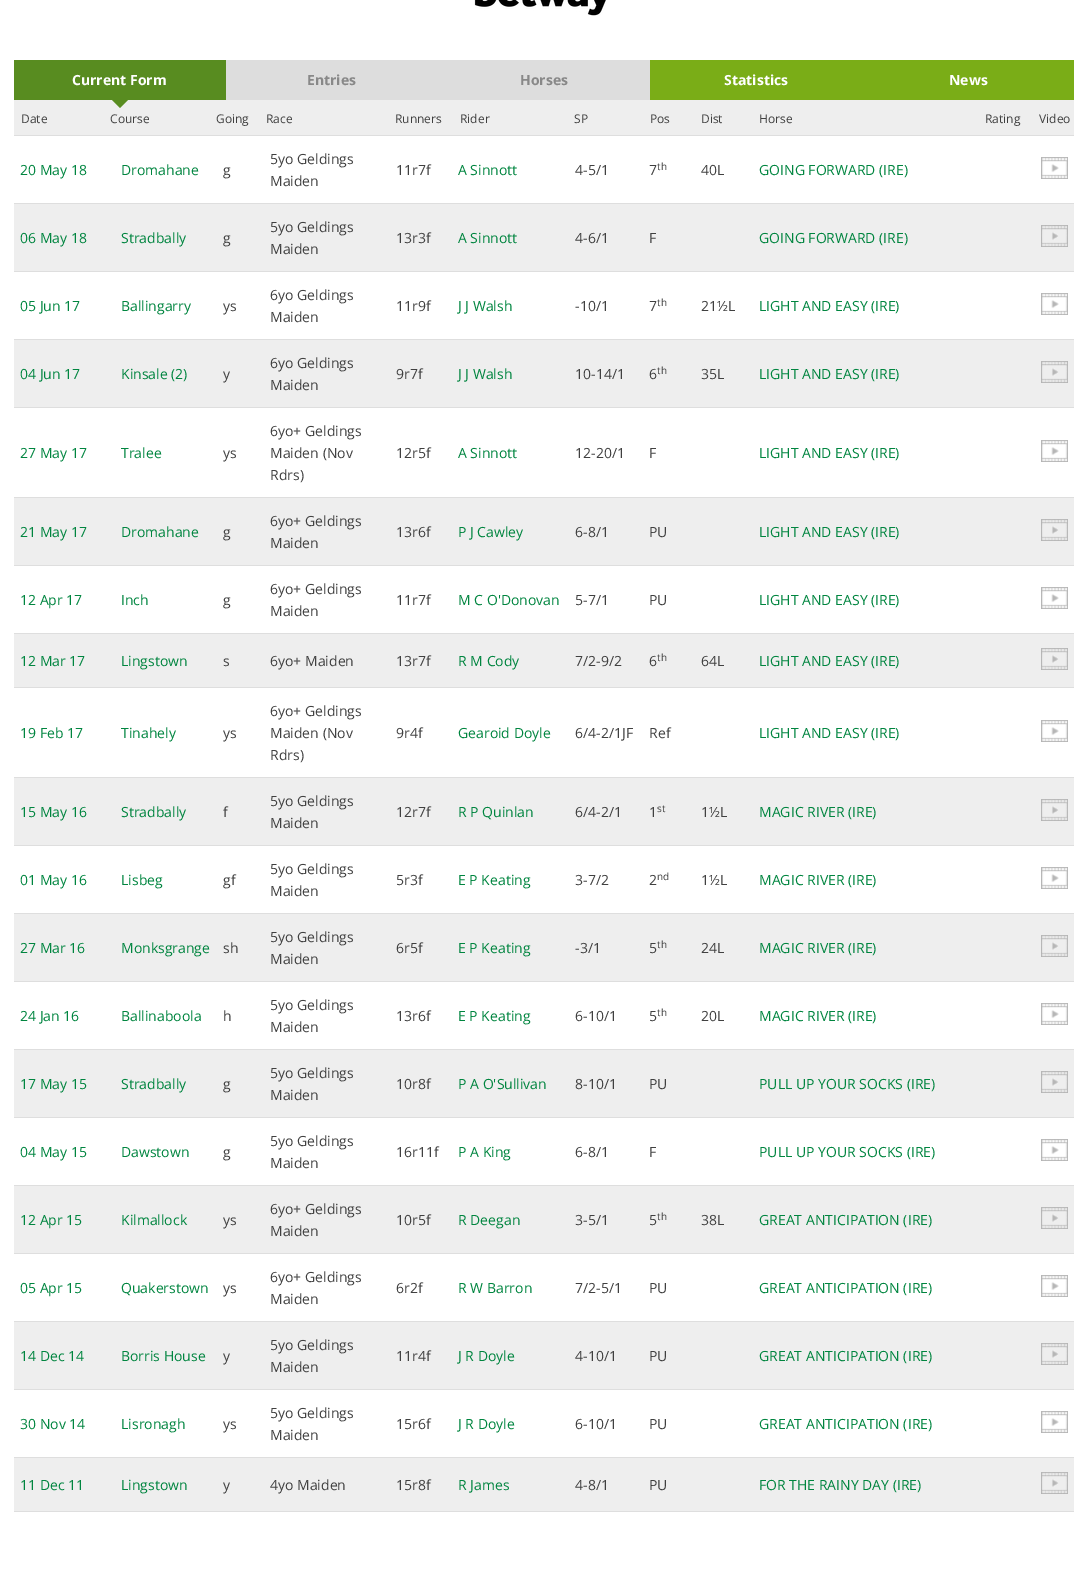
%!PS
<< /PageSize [1088 1570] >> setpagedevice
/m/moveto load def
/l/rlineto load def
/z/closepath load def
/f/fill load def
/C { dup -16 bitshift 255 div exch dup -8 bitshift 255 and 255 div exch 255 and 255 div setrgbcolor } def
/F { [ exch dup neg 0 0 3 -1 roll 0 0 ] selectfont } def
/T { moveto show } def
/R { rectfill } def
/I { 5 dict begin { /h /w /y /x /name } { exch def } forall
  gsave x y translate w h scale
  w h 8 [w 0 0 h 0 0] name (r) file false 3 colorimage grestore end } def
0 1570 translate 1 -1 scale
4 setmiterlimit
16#FFFFFF C
0 0 1088 1570 R
(1.rgb) 474 0 132 16 I
16#588C20 C
14 60 212 40 R
/OpenSans-Bold 14 F
16#FFFFFF C
(Current Form) 72 85 T
16#EEEEEE C
14 100 1060 35 R
16#588C20 C
112 100 m 16 0 l -8 8 l z f
16#DDDDDD C
226 60 424 40 R
16#888888 C
(Entries) 307 85 T
(Horses) 520 85 T
16#7AAD17 C
650 60 424 40 R
16#FFFFFF C
(Statistics) 724 85 T
(News) 949 85 T
16#DEDEDE C
14 135 1060 1 R
/OpenSans-Regular 12 F
16#404040 C
(Date) 21 123 T
(Course) 110 123 T
(Going) 216 123 T
(Race) 266 123 T
(Runners) 395 123 T
(Rider) 460 123 T
(SP) 574 123 T
(Pos) 650 123 T
(Dist) 701 123 T
(Horse) 759 123 T
(Rating) 985 123 T
(Video) 1039 123 T
16#DEDEDE C
14 203 1060 1 R
/OpenSans-Regular 14 F
16#00853F C
(20 May 18) 20 175 T
(Dromahane) 121 175 T
16#404040 C
(g) 223 175 T
(5yo Geldings) 270 164 T
(Maiden) 270 186 T
(11r7f) 396 175 T
16#00853F C
(A Sinnott) 458 175 T
16#404040 C
(4-5/1) 575 175 T
(7) 649 175 T
/OpenSans-Regular 10 F
(th) 657 170 T
/OpenSans-Regular 14 F
(40L) 701 175 T
16#00853F C
(GOING FORWARD \(IRE\)) 759 175 T
(2.rgb) 1041 157 27 22 I
16#EEEEEE C
14 204 1060 67 R
16#DEDEDE C
14 271 1060 1 R
16#00853F C
(06 May 18) 20 243 T
(Stradbally) 121 243 T
16#404040 C
(g) 223 243 T
(5yo Geldings) 270 232 T
(Maiden) 270 254 T
(13r3f) 396 243 T
16#00853F C
(A Sinnott) 458 243 T
16#404040 C
(4-6/1) 575 243 T
(F) 649 243 T
16#00853F C
(GOING FORWARD \(IRE\)) 759 243 T
(3.rgb) 1041 225 27 22 I
16#DEDEDE C
14 339 1060 1 R
16#00853F C
(05 Jun 17) 20 311 T
(Ballingarry) 121 311 T
16#404040 C
(ys) 223 311 T
(6yo Geldings) 270 300 T
(Maiden) 270 322 T
(11r9f) 396 311 T
16#00853F C
(J J Walsh) 458 311 T
16#404040 C
(-10/1) 575 311 T
(7) 649 311 T
/OpenSans-Regular 10 F
(th) 657 306 T
/OpenSans-Regular 14 F
(21½L) 701 311 T
16#00853F C
(LIGHT AND EASY \(IRE\)) 759 311 T
(2.rgb) 1041 293 27 22 I
16#EEEEEE C
14 340 1060 67 R
16#DEDEDE C
14 407 1060 1 R
16#00853F C
(04 Jun 17) 20 379 T
(Kinsale \(2\)) 121 379 T
16#404040 C
(y) 223 379 T
(6yo Geldings) 270 368 T
(Maiden) 270 390 T
(9r7f) 396 379 T
16#00853F C
(J J Walsh) 458 379 T
16#404040 C
(10-14/1) 575 379 T
(6) 649 379 T
/OpenSans-Regular 10 F
(th) 657 374 T
/OpenSans-Regular 14 F
(35L) 701 379 T
16#00853F C
(LIGHT AND EASY \(IRE\)) 759 379 T
(3.rgb) 1041 361 27 22 I
16#DEDEDE C
14 497 1060 1 R
16#00853F C
(27 May 17) 20 458 T
(Tralee) 121 458 T
16#404040 C
(ys) 223 458 T
(6yo+ Geldings) 270 436 T
(Maiden \(Nov) 270 458 T
(Rdrs\)) 270 480 T
(12r5f) 396 458 T
16#00853F C
(A Sinnott) 458 458 T
16#404040 C
(12-20/1) 575 458 T
(F) 649 458 T
16#00853F C
(LIGHT AND EASY \(IRE\)) 759 458 T
(2.rgb) 1041 440 27 22 I
16#EEEEEE C
14 498 1060 67 R
16#DEDEDE C
14 565 1060 1 R
16#00853F C
(21 May 17) 20 537 T
(Dromahane) 121 537 T
16#404040 C
(g) 223 537 T
(6yo+ Geldings) 270 526 T
(Maiden) 270 548 T
(13r6f) 396 537 T
16#00853F C
(P J Cawley) 458 537 T
16#404040 C
(6-8/1) 575 537 T
(PU) 649 537 T
16#00853F C
(LIGHT AND EASY \(IRE\)) 759 537 T
(3.rgb) 1041 519 27 22 I
16#DEDEDE C
14 633 1060 1 R
16#00853F C
(12 Apr 17) 20 605 T
(Inch) 121 605 T
16#404040 C
(g) 223 605 T
(6yo+ Geldings) 270 594 T
(Maiden) 270 616 T
(11r7f) 396 605 T
16#00853F C
(M C O'Donovan) 458 605 T
16#404040 C
(5-7/1) 575 605 T
(PU) 649 605 T
16#00853F C
(LIGHT AND EASY \(IRE\)) 759 605 T
(2.rgb) 1041 587 27 22 I
16#EEEEEE C
14 634 1060 53 R
16#DEDEDE C
14 687 1060 1 R
16#00853F C
(12 Mar 17) 20 666 T
(Lingstown) 121 666 T
16#404040 C
(s) 223 666 T
(6yo+ Maiden) 270 666 T
(13r7f) 396 666 T
16#00853F C
(R M Cody) 458 666 T
16#404040 C
(7/2-9/2) 575 666 T
(6) 649 666 T
/OpenSans-Regular 10 F
(th) 657 661 T
/OpenSans-Regular 14 F
(64L) 701 666 T
16#00853F C
(LIGHT AND EASY \(IRE\)) 759 666 T
(3.rgb) 1041 648 27 22 I
16#DEDEDE C
14 777 1060 1 R
16#00853F C
(19 Feb 17) 20 738 T
(Tinahely) 121 738 T
16#404040 C
(ys) 223 738 T
(6yo+ Geldings) 270 716 T
(Maiden \(Nov) 270 738 T
(Rdrs\)) 270 760 T
(9r4f) 396 738 T
16#00853F C
(Gearoid Doyle) 458 738 T
16#404040 C
(6/4-2/1JF) 575 738 T
(Ref) 649 738 T
16#00853F C
(LIGHT AND EASY \(IRE\)) 759 738 T
(2.rgb) 1041 720 27 22 I
16#EEEEEE C
14 778 1060 67 R
16#DEDEDE C
14 845 1060 1 R
16#00853F C
(15 May 16) 20 817 T
(Stradbally) 121 817 T
16#404040 C
(f) 223 817 T
(5yo Geldings) 270 806 T
(Maiden) 270 828 T
(12r7f) 396 817 T
16#00853F C
(R P Quinlan) 458 817 T
16#404040 C
(6/4-2/1) 575 817 T
(1) 649 817 T
/OpenSans-Regular 10 F
(st) 657 812 T
/OpenSans-Regular 14 F
(1½L) 701 817 T
16#00853F C
(MAGIC RIVER \(IRE\)) 759 817 T
(3.rgb) 1041 799 27 22 I
16#DEDEDE C
14 913 1060 1 R
16#00853F C
(01 May 16) 20 885 T
(Lisbeg) 121 885 T
16#404040 C
(gf) 223 885 T
(5yo Geldings) 270 874 T
(Maiden) 270 896 T
(5r3f) 396 885 T
16#00853F C
(E P Keating) 458 885 T
16#404040 C
(3-7/2) 575 885 T
(2) 649 885 T
/OpenSans-Regular 10 F
(nd) 657 880 T
/OpenSans-Regular 14 F
(1½L) 701 885 T
16#00853F C
(MAGIC RIVER \(IRE\)) 759 885 T
(2.rgb) 1041 867 27 22 I
16#EEEEEE C
14 914 1060 67 R
16#DEDEDE C
14 981 1060 1 R
16#00853F C
(27 Mar 16) 20 953 T
(Monksgrange) 121 953 T
16#404040 C
(sh) 223 953 T
(5yo Geldings) 270 942 T
(Maiden) 270 964 T
(6r5f) 396 953 T
16#00853F C
(E P Keating) 458 953 T
16#404040 C
(-3/1) 575 953 T
(5) 649 953 T
/OpenSans-Regular 10 F
(th) 657 948 T
/OpenSans-Regular 14 F
(24L) 701 953 T
16#00853F C
(MAGIC RIVER \(IRE\)) 759 953 T
(3.rgb) 1041 935 27 22 I
16#DEDEDE C
14 1049 1060 1 R
16#00853F C
(24 Jan 16) 20 1021 T
(Ballinaboola) 121 1021 T
16#404040 C
(h) 223 1021 T
(5yo Geldings) 270 1010 T
(Maiden) 270 1032 T
(13r6f) 396 1021 T
16#00853F C
(E P Keating) 458 1021 T
16#404040 C
(6-10/1) 575 1021 T
(5) 649 1021 T
/OpenSans-Regular 10 F
(th) 657 1016 T
/OpenSans-Regular 14 F
(20L) 701 1021 T
16#00853F C
(MAGIC RIVER \(IRE\)) 759 1021 T
(2.rgb) 1041 1003 27 22 I
16#EEEEEE C
14 1050 1060 67 R
16#DEDEDE C
14 1117 1060 1 R
16#00853F C
(17 May 15) 20 1089 T
(Stradbally) 121 1089 T
16#404040 C
(g) 223 1089 T
(5yo Geldings) 270 1078 T
(Maiden) 270 1100 T
(10r8f) 396 1089 T
16#00853F C
(P A O'Sullivan) 458 1089 T
16#404040 C
(8-10/1) 575 1089 T
(PU) 649 1089 T
16#00853F C
(PULL UP YOUR SOCKS \(IRE\)) 759 1089 T
(3.rgb) 1041 1071 27 22 I
16#DEDEDE C
14 1185 1060 1 R
16#00853F C
(04 May 15) 20 1157 T
(Dawstown) 121 1157 T
16#404040 C
(g) 223 1157 T
(5yo Geldings) 270 1146 T
(Maiden) 270 1168 T
(16r11f) 396 1157 T
16#00853F C
(P A King) 458 1157 T
16#404040 C
(6-8/1) 575 1157 T
(F) 649 1157 T
16#00853F C
(PULL UP YOUR SOCKS \(IRE\)) 759 1157 T
(4.rgb) 1041 1139 27 22 I
16#EEEEEE C
14 1186 1060 67 R
16#DEDEDE C
14 1253 1060 1 R
16#00853F C
(12 Apr 15) 20 1225 T
(Kilmallock) 121 1225 T
16#404040 C
(ys) 223 1225 T
(6yo+ Geldings) 270 1214 T
(Maiden) 270 1236 T
(10r5f) 396 1225 T
16#00853F C
(R Deegan) 458 1225 T
16#404040 C
(3-5/1) 575 1225 T
(5) 649 1225 T
/OpenSans-Regular 10 F
(th) 657 1220 T
/OpenSans-Regular 14 F
(38L) 701 1225 T
16#00853F C
(GREAT ANTICIPATION \(IRE\)) 759 1225 T
(3.rgb) 1041 1207 27 22 I
16#DEDEDE C
14 1321 1060 1 R
16#00853F C
(05 Apr 15) 20 1293 T
(Quakerstown) 121 1293 T
16#404040 C
(ys) 223 1293 T
(6yo+ Geldings) 270 1282 T
(Maiden) 270 1304 T
(6r2f) 396 1293 T
16#00853F C
(R W Barron) 458 1293 T
16#404040 C
(7/2-5/1) 575 1293 T
(PU) 649 1293 T
16#00853F C
(GREAT ANTICIPATION \(IRE\)) 759 1293 T
(2.rgb) 1041 1275 27 22 I
16#EEEEEE C
14 1322 1060 67 R
16#DEDEDE C
14 1389 1060 1 R
16#00853F C
(14 Dec 14) 20 1361 T
(Borris House) 121 1361 T
16#404040 C
(y) 223 1361 T
(5yo Geldings) 270 1350 T
(Maiden) 270 1372 T
(11r4f) 396 1361 T
16#00853F C
(J R Doyle) 458 1361 T
16#404040 C
(4-10/1) 575 1361 T
(PU) 649 1361 T
16#00853F C
(GREAT ANTICIPATION \(IRE\)) 759 1361 T
(3.rgb) 1041 1343 27 22 I
16#DEDEDE C
14 1457 1060 1 R
16#00853F C
(30 Nov 14) 20 1429 T
(Lisronagh) 121 1429 T
16#404040 C
(ys) 223 1429 T
(5yo Geldings) 270 1418 T
(Maiden) 270 1440 T
(15r6f) 396 1429 T
16#00853F C
(J R Doyle) 458 1429 T
16#404040 C
(6-10/1) 575 1429 T
(PU) 649 1429 T
16#00853F C
(GREAT ANTICIPATION \(IRE\)) 759 1429 T
(2.rgb) 1041 1411 27 22 I
16#EEEEEE C
14 1458 1060 53 R
16#DEDEDE C
14 1511 1060 1 R
16#00853F C
(11 Dec 11) 20 1490 T
(Lingstown) 121 1490 T
16#404040 C
(y) 223 1490 T
(4yo Maiden) 270 1490 T
(15r8f) 396 1490 T
16#00853F C
(R James) 458 1490 T
16#404040 C
(4-8/1) 575 1490 T
(PU) 649 1490 T
16#00853F C
(FOR THE RAINY DAY \(IRE\)) 759 1490 T
(3.rgb) 1041 1472 27 22 I
showpage
